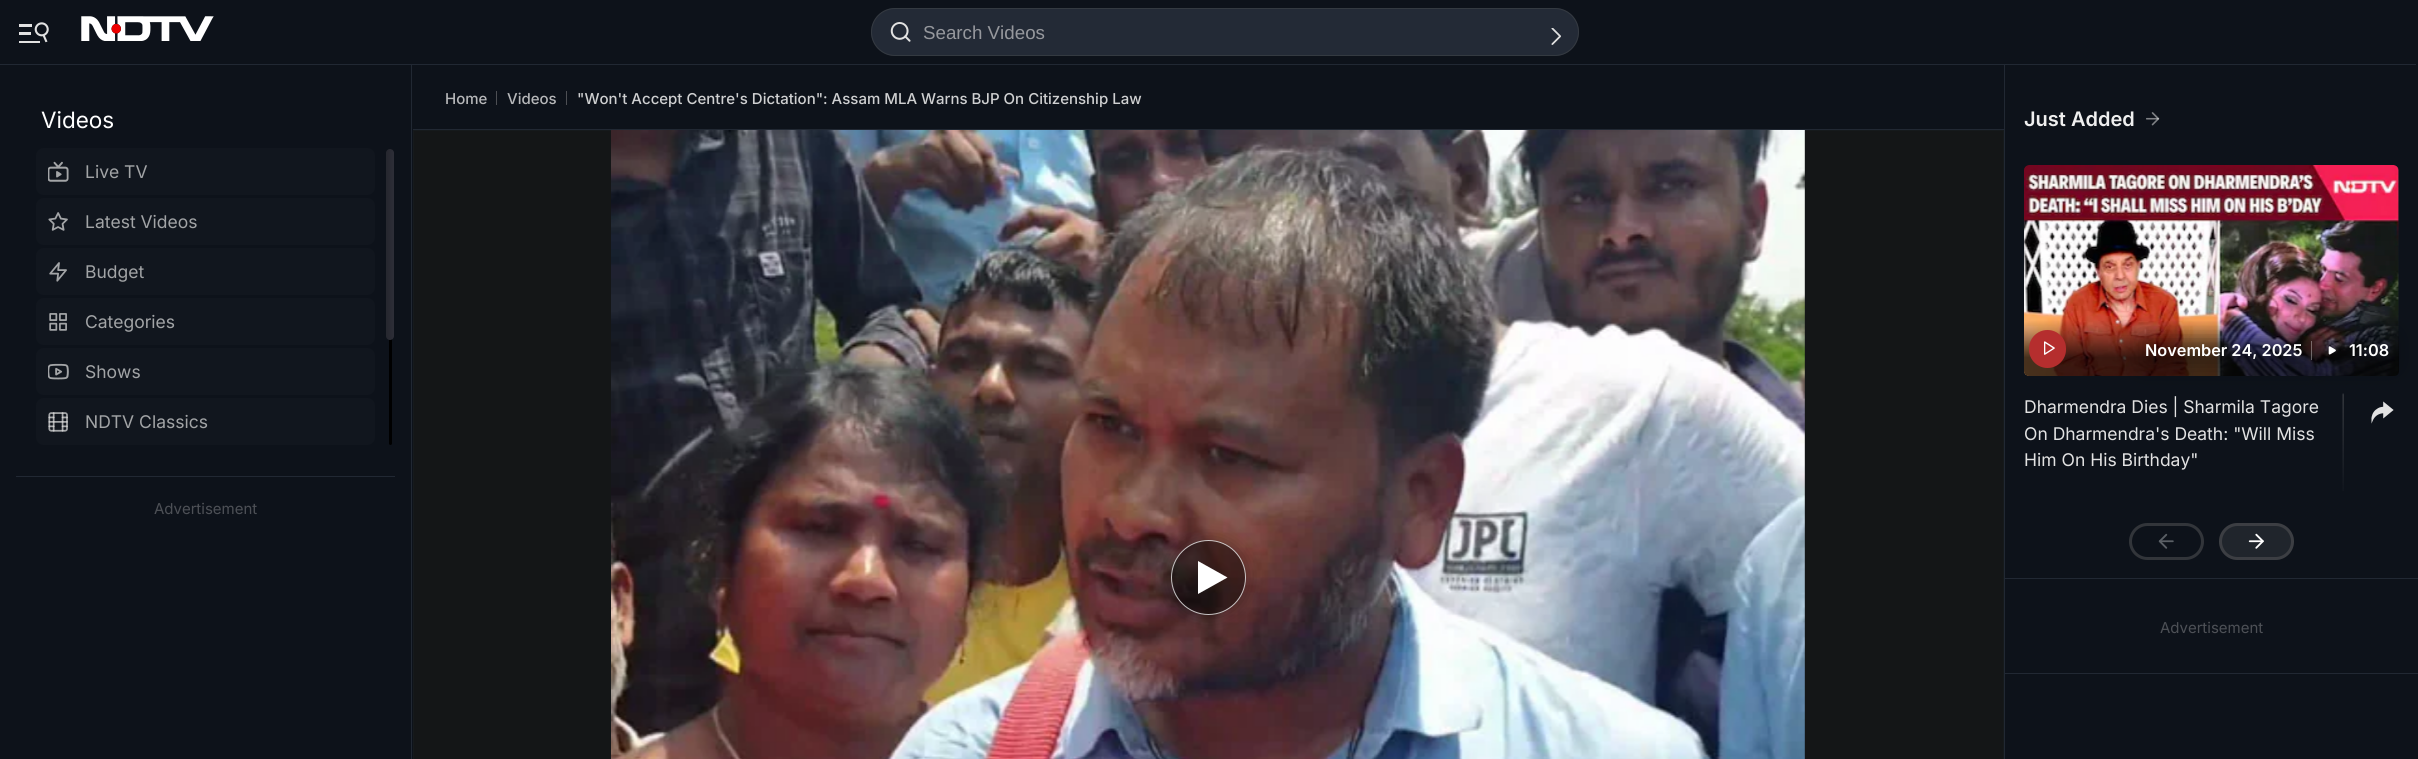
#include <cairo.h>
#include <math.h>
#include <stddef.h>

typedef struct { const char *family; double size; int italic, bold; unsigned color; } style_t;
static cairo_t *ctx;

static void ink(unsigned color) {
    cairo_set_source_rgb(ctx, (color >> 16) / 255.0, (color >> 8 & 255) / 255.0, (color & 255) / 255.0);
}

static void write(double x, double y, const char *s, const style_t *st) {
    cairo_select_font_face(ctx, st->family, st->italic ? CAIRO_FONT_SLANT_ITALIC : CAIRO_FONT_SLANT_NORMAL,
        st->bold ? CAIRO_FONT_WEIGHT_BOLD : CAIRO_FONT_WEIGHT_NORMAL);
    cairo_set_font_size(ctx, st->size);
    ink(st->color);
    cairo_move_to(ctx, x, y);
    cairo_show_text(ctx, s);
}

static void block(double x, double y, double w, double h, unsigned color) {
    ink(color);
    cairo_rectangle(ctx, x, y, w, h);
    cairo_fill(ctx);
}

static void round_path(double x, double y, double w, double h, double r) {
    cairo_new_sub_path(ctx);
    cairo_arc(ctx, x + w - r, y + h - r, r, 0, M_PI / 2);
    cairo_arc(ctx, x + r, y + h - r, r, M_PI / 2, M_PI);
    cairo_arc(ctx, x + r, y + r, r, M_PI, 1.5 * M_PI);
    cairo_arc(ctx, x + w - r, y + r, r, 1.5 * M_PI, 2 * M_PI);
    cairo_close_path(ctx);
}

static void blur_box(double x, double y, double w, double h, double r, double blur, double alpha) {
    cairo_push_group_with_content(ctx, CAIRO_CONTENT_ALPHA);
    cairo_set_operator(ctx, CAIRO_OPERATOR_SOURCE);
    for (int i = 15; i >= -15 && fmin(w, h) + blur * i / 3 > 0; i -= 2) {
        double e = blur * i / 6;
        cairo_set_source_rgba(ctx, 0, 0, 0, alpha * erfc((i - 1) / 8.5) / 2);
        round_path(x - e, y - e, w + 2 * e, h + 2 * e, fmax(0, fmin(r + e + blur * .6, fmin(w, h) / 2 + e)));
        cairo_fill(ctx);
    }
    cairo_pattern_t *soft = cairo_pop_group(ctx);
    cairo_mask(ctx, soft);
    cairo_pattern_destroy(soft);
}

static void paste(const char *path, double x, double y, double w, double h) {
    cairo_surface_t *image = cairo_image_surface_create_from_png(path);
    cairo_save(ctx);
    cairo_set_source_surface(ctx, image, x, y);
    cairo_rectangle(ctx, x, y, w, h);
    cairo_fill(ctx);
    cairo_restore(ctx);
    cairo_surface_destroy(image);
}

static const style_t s1 = {"Inter", 22.5, 0, 0, 0xffffff};
static const style_t s2 = {"Inter", 17.5, 0, 0, 0xa2a4a6};
static const style_t s3 = {"Inter", 15, 0, 0, 0x4d5056};
static const style_t s4 = {"Liberation Sans", 18.75, 0, 0, 0x96989d};
static const style_t s5 = {"Inter Medium", 15, 0, 0, 0xb7b8ba};
static const style_t s6 = {"Inter Medium", 15, 0, 0, 0xcfd0d1};
static const style_t s7 = {"Inter SemiBold", 20, 0, 0, 0xefefef};
static const style_t s8 = {"Inter SemiBold", 16.25, 0, 0, 0xffffff};
static const style_t s9 = {"Inter", 17.5, 0, 0, 0xe2e2e2};

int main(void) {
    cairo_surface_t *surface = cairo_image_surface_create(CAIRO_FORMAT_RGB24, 2418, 759);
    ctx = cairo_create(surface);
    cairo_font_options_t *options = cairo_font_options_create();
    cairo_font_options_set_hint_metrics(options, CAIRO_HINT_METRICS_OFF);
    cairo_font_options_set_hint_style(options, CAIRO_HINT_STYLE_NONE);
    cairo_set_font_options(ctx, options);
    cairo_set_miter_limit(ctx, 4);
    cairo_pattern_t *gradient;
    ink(0x0d121a);
    cairo_paint(ctx);
    block(0, 64, 2416, 1, 0x212833);
    paste("pic1.png", 19, 22, 30, 21);
    paste("pic2.png", 81, 16, 133, 25);
    block(16, 476, 379, 1, 0x212833);
    write(41, 128, "Videos", &s1);
    ink(0x11161e);
    round_path(36, 148, 339, 47, 8);
    cairo_fill(ctx);
    paste("pic3.png", 48, 161, 21, 21);
    write(85, 178, "Live TV", &s2);
    ink(0x11161e);
    round_path(36, 198, 339, 47, 8);
    cairo_fill(ctx);
    paste("pic4.png", 48, 212, 20, 19);
    write(85, 228, "Latest Videos", &s2);
    ink(0x11161e);
    round_path(36, 248, 339, 47, 8);
    cairo_fill(ctx);
    paste("pic5.png", 49, 262, 18, 20);
    write(85, 278, "Budget", &s2);
    ink(0x11161e);
    round_path(36, 298, 339, 47, 8);
    cairo_fill(ctx);
    paste("pic6.png", 49, 313, 18, 18);
    write(85, 328, "Categories", &s2);
    ink(0x11161e);
    round_path(36, 348, 339, 47, 8);
    cairo_fill(ctx);
    paste("pic7.png", 48, 363, 21, 17);
    write(85, 378, "Shows", &s2);
    ink(0x11161e);
    round_path(36, 398, 339, 47, 8);
    cairo_fill(ctx);
    paste("pic8.png", 48, 412, 20, 20);
    write(85, 428, "NDTV Classics", &s2);
    ink(0x000000);
    round_path(389, 149, 3, 296, 1.5);
    cairo_fill(ctx);
    gradient = cairo_pattern_create_linear(394, 244, 386, 244);
    cairo_pattern_add_color_stop_rgba(gradient, 0, 0.18, 0.184, 0.216, 1);
    cairo_pattern_add_color_stop_rgba(gradient, 1, 0.145, 0.153, 0.184, 1);
    cairo_set_source(ctx, gradient);
    cairo_pattern_destroy(gradient);
    round_path(386, 149, 8, 191, 4);
    cairo_fill(ctx);
    write(154, 514, "Advertisement", &s3);
    block(411, 65, 1, 694, 0x212833);
    ink(0x232a36);
    round_path(871, 8, 708, 48, 24);
    cairo_fill(ctx);
    round_path(871.5, 8.5, 707, 47, 23.5);
    cairo_set_source_rgba(ctx, 0.243, 0.259, 0.282, 0.65);
    cairo_set_line_width(ctx, 1);
    cairo_stroke(ctx);
    paste("pic9.png", 890, 22, 21, 20);
    write(923, 39, "Search Videos", &s4);
    paste("pic10.png", 1551, 28, 10, 17);
    write(445, 104, "Home", &s5);
    block(496, 91, 1, 14, 0x4d4f54);
    write(507, 104, "Videos", &s5);
    block(566, 91, 1, 14, 0x4d4f54);
    write(577, 104, "\"Won't Accept Centre's Dictation\": Assam MLA Warns BJP On Citizenship Law", &s6);
    block(413, 129, 1591, 1, 0x212833);
    ink(0x141617);
    cairo_rectangle(ctx, 413.5, 130.5, 1590, 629);
    cairo_fill_preserve(ctx);
    ink(0x161a1c);
    cairo_stroke(ctx);
    paste("pic11.png", 611, 130, 1194, 629);
    cairo_save(ctx);
    cairo_set_fill_rule(ctx, CAIRO_FILL_RULE_EVEN_ODD);
    cairo_new_path(ctx);
    cairo_move_to(ctx, 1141, 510);
    cairo_line_to(ctx, 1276, 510);
    cairo_line_to(ctx, 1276, 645);
    cairo_line_to(ctx, 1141, 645);
    cairo_close_path(ctx);
    cairo_move_to(ctx, 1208.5, 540);
    cairo_curve_to(ctx, 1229, 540, 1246, 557, 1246, 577.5);
    cairo_curve_to(ctx, 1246, 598, 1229, 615, 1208.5, 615);
    cairo_curve_to(ctx, 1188, 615, 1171, 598, 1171, 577.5);
    cairo_curve_to(ctx, 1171, 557, 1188, 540, 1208.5, 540);
    cairo_close_path(ctx);
    cairo_clip(ctx);
    ink(0x000000);
    blur_box(1171, 540, 75, 75, 37.5, 9.5, 0.35);
    cairo_restore(ctx);
    cairo_set_source_rgba(ctx, 0, 0, 0, 0.5);
    cairo_arc(ctx, 1208.5, 577.5, 37.5, 0, 2 * M_PI);
    cairo_fill(ctx);
    cairo_arc(ctx, 1208.5, 577.5, 37, 0, 2 * M_PI);
    cairo_set_source_rgba(ctx, 1, 1, 1, 0.75);
    cairo_stroke(ctx);
    ink(0xffffff);
    cairo_new_path(ctx);
    cairo_move_to(ctx, 1198, 594);
    cairo_line_to(ctx, 1198, 561);
    cairo_line_to(ctx, 1227.5, 577.5);
    cairo_close_path(ctx);
    cairo_fill(ctx);
    block(2004, 65, 1, 694, 0x212833);
    write(2024, 126, "Just Added", &s7);
    paste("pic12.png", 2146, 112, 14, 14);
    round_path(2024.5, 165.5, 374, 210, 4.5);
    ink(0x10161f);
    cairo_stroke(ctx);
    paste("pic13.png", 2024, 165, 375, 211);
    gradient = cairo_pattern_create_linear(2211, 376, 2211, 320);
    cairo_pattern_add_color_stop_rgba(gradient, 0.33, 0, 0, 0, 0.72);
    cairo_pattern_add_color_stop_rgba(gradient, 1, 0, 0, 0, 0);
    cairo_set_source(ctx, gradient);
    cairo_pattern_destroy(gradient);
    cairo_new_path(ctx);
    cairo_move_to(ctx, 2024, 320);
    cairo_line_to(ctx, 2399, 320);
    cairo_line_to(ctx, 2399, 371);
    cairo_curve_to(ctx, 2399, 374, 2397, 376, 2394, 376);
    cairo_line_to(ctx, 2029, 376);
    cairo_curve_to(ctx, 2026, 376, 2024, 374, 2024, 371);
    cairo_close_path(ctx);
    cairo_fill(ctx);
    ink(0xb52e2e);
    round_path(2029, 330, 37, 38, 18.5);
    cairo_fill(ctx);
    paste("pic14.png", 2044, 341, 11, 14);
    ink(0x000000);
    blur_box(2140, 336, 178, 30, 0, 12.5, 0.31);
    blur_box(2318, 336, 76, 30, 0, 12.5, 0.31);
    write(2145, 356, "November 24, 2025", &s8);
    cairo_set_source_rgba(ctx, 1, 1, 1, 0.34);
    cairo_rectangle(ctx, 2311, 341, 1, 19);
    cairo_fill(ctx);
    paste("pic15.png", 2328, 346, 8, 9);
    write(2349, 356, "11:08", &s8);
    paste("pic16.png", 2342, 393, 2, 98);
    write(2024, 413, "Dharmendra Dies | Sharmila Tagore", &s9);
    write(2024, 440, "On Dharmendra's Death: \"Will Miss", &s9);
    write(2024, 466, "Him On His Birthday\"", &s9);
    paste("pic17.png", 2371, 401, 23, 23);
    round_path(2130.5, 524.5, 72, 34, 17);
    ink(0x32353a);
    cairo_set_line_width(ctx, 3);
    cairo_stroke(ctx);
    paste("pic18.png", 2158, 533, 16, 16);
    cairo_set_source_rgba(ctx, 1, 1, 1, 0.08);
    round_path(2219, 523, 75, 37, 18.5);
    cairo_fill(ctx);
    round_path(2220.5, 524.5, 72, 34, 17);
    cairo_set_source_rgba(ctx, 0.388, 0.388, 0.388, 0.42);
    cairo_stroke(ctx);
    paste("pic19.png", 2248, 533, 16, 16);
    block(2005, 578, 413, 1, 0x212833);
    block(2005, 673, 413, 1, 0x212833);
    write(2160, 633, "Advertisement", &s3);
    cairo_surface_write_to_png(surface, "screenshot.png");
    cairo_font_options_destroy(options);
    cairo_destroy(ctx);
    cairo_surface_destroy(surface);
    return 0;
}
